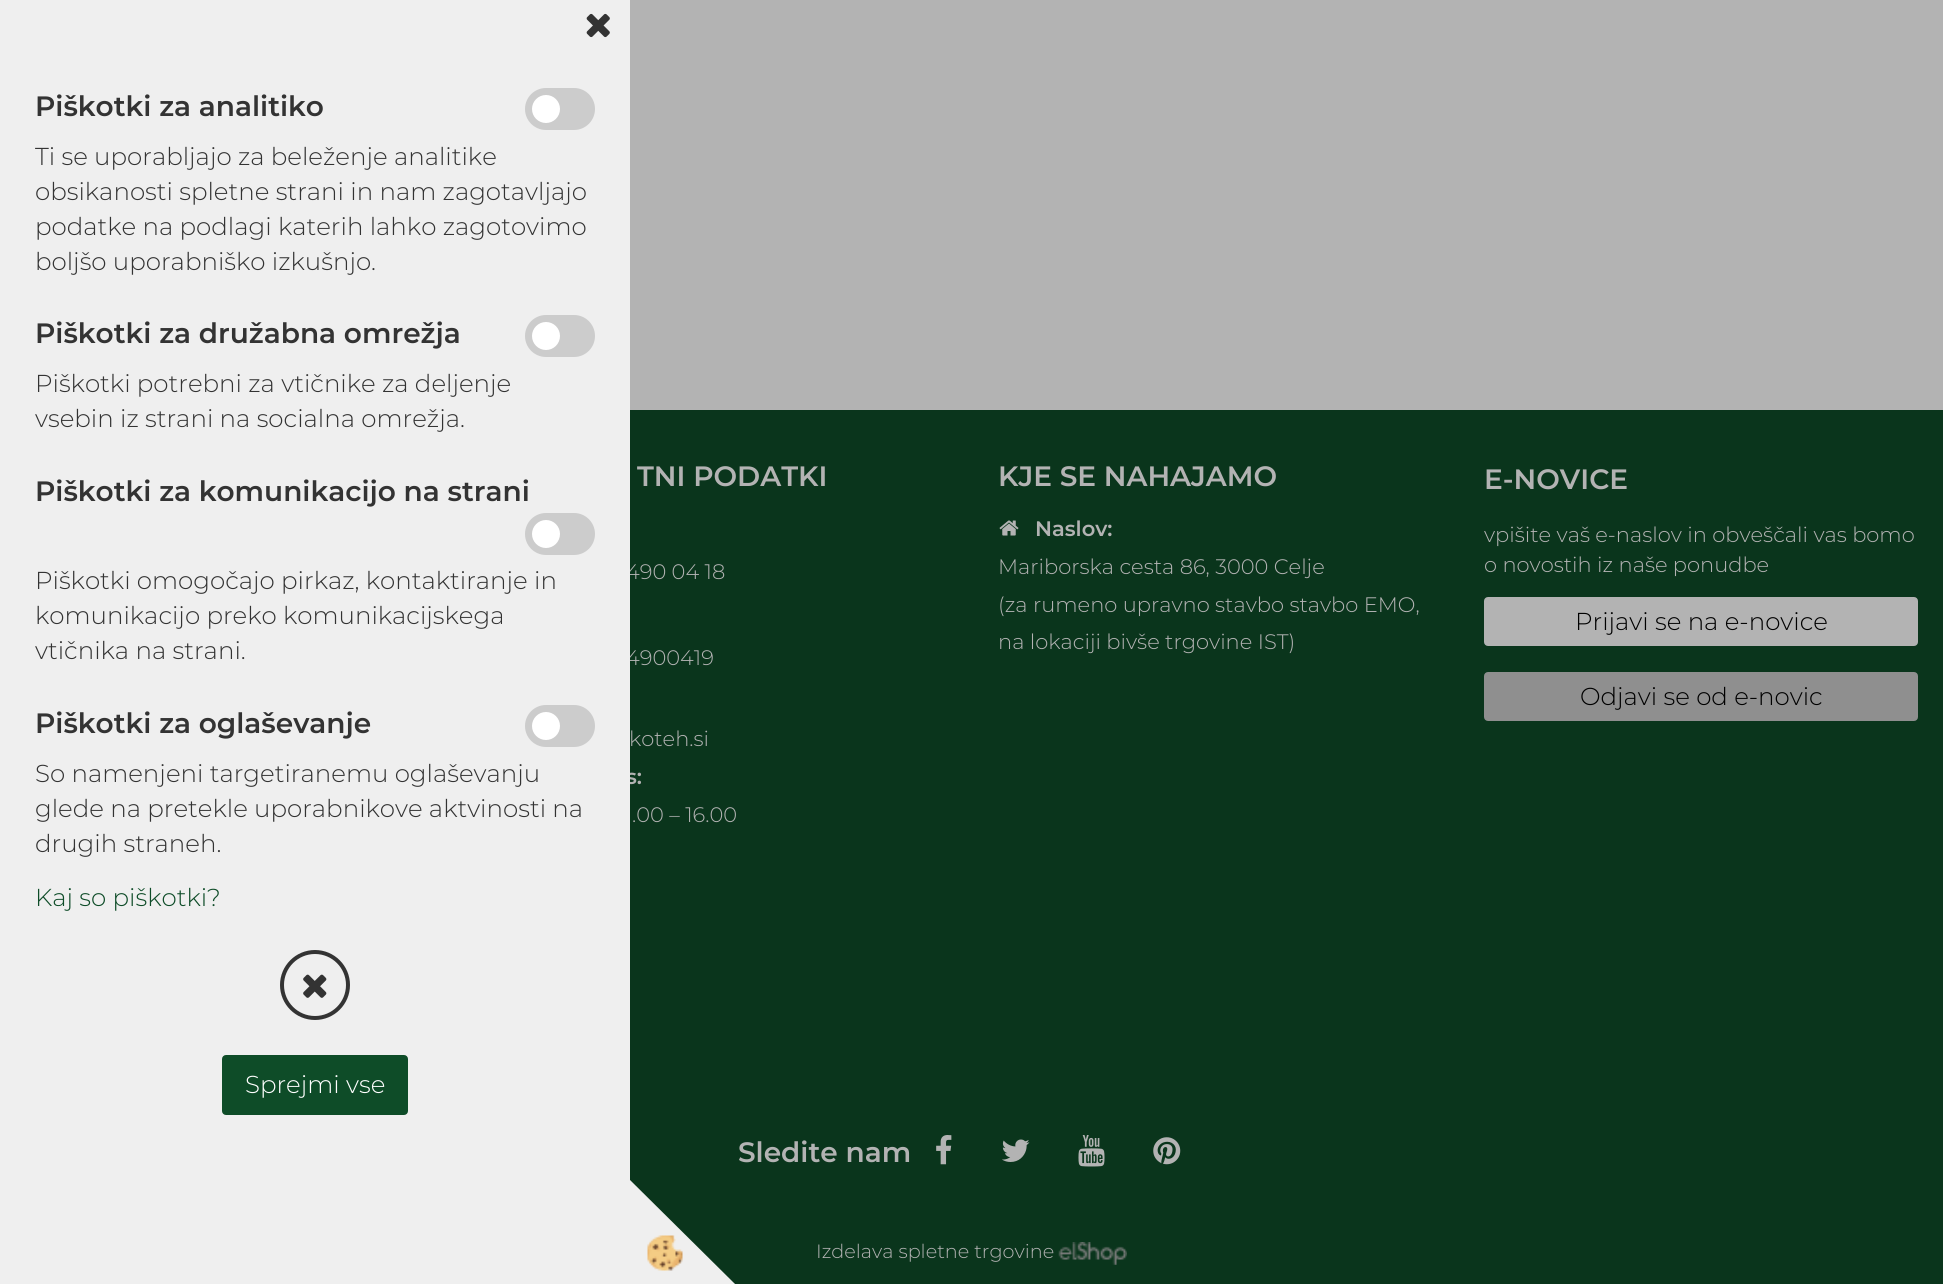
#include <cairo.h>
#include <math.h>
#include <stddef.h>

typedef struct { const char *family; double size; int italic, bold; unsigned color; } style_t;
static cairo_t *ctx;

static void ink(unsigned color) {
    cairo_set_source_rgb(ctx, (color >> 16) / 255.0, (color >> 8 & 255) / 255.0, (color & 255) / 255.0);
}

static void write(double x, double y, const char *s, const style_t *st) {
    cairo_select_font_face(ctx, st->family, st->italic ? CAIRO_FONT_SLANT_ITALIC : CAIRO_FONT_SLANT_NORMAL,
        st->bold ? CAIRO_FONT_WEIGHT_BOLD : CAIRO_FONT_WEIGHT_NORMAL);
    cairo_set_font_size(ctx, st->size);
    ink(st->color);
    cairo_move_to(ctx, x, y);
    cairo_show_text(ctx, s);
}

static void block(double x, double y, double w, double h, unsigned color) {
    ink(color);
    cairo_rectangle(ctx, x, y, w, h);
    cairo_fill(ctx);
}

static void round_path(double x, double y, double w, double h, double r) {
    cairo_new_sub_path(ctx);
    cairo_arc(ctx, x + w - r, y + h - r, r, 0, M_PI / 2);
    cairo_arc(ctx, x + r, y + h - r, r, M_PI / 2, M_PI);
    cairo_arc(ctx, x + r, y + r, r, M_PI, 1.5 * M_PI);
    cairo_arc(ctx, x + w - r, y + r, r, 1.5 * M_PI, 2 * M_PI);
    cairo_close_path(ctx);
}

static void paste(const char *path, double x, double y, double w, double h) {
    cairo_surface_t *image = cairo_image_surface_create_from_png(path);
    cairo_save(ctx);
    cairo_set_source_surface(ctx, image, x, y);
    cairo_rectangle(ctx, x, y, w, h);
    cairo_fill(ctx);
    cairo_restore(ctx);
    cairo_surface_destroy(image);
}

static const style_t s1 = {"Montserrat Light", 21, 0, 0, 0xb3b3b3};
static const style_t s2 = {"Montserrat SemiBold", 21, 0, 0, 0xb3b3b3};
static const style_t s3 = {"Montserrat SemiBold", 28, 0, 0, 0x333333};
static const style_t s4 = {"Montserrat Light", 24.5, 0, 0, 0x333333};
static const style_t s5 = {"Montserrat Light", 24.5, 0, 0, 0x0e4c28};
static const style_t s6 = {"Montserrat Light", 24.5, 0, 0, 0xffffff};
static const style_t s7 = {"Montserrat SemiBold", 28, 0, 0, 0xb3b3b3};
static const style_t s8 = {"Montserrat Light", 24.5, 0, 0, 0x000000};
static const style_t s9 = {"Montserrat Light", 19.25, 0, 0, 0xb3b3b3};

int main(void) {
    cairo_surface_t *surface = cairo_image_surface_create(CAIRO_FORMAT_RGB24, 1943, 1284);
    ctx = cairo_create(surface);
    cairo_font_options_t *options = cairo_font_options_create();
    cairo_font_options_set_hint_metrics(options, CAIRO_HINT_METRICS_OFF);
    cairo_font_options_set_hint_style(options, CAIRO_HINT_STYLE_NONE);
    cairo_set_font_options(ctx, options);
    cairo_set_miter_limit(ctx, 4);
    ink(0xb3b3b3);
    cairo_paint(ctx);
    block(630, 410, 1313, 812, 0x0a351c);
    write(626, 579, "490 04 18", &s1);
    write(626, 665, "4900419", &s1);
    write(626, 784, "s:", &s2);
    block(0, 0, 630, 1284, 0xefefef);
    paste("pic1.png", 586, 13, 24, 25);
    write(35, 116, "Piškotki za analitiko", &s3);
    ink(0xcccccc);
    round_path(525, 88, 70, 42, 21);
    cairo_fill(ctx);
    ink(0xffffff);
    cairo_arc(ctx, 546, 109, 14, 0, 2 * M_PI);
    cairo_fill(ctx);
    write(35, 165, "Ti se uporabljajo za beleženje analitike", &s4);
    write(35, 200, "obsikanosti spletne strani in nam zagotavljajo", &s4);
    write(35, 235, "podatke na podlagi katerih lahko zagotovimo", &s4);
    write(35, 270, "boljšo uporabniško izkušnjo.", &s4);
    write(35, 343, "Piškotki za družabna omrežja", &s3);
    ink(0xcccccc);
    round_path(525, 315, 70, 42, 21);
    cairo_fill(ctx);
    ink(0xffffff);
    cairo_arc(ctx, 546, 336, 14, 0, 2 * M_PI);
    cairo_fill(ctx);
    write(35, 392, "Piškotki potrebni za vtičnike za deljenje", &s4);
    write(35, 427, "vsebin iz strani na socialna omrežja.", &s4);
    write(35, 501, "Piškotki za komunikacijo na strani", &s3);
    ink(0xcccccc);
    round_path(525, 513, 70, 42, 21);
    cairo_fill(ctx);
    ink(0xffffff);
    cairo_arc(ctx, 546, 534, 14, 0, 2 * M_PI);
    cairo_fill(ctx);
    write(35, 589, "Piškotki omogočajo pirkaz, kontaktiranje in", &s4);
    write(35, 624, "komunikacijo preko komunikacijskega", &s4);
    write(35, 659, "vtičnika na strani.", &s4);
    write(35, 733, "Piškotki za oglaševanje", &s3);
    ink(0xcccccc);
    round_path(525, 705, 70, 42, 21);
    cairo_fill(ctx);
    ink(0xffffff);
    cairo_arc(ctx, 546, 726, 14, 0, 2 * M_PI);
    cairo_fill(ctx);
    write(35, 782, "So namenjeni targetiranemu oglaševanju", &s4);
    write(35, 817, "glede na pretekle uporabnikove aktvinosti na", &s4);
    write(35, 852, "drugih straneh.", &s4);
    write(35, 906, "Kaj so piškotki?", &s5);
    cairo_new_path(ctx);
    cairo_arc(ctx, 315, 985, 33, 0, 2 * M_PI);
    ink(0x333333);
    cairo_set_line_width(ctx, 4);
    cairo_stroke(ctx);
    paste("pic2.png", 303, 974, 24, 24);
    ink(0x0e4c28);
    round_path(223, 1056, 184, 58, 3);
    cairo_fill_preserve(ctx);
    cairo_set_line_width(ctx, 2);
    cairo_stroke(ctx);
    write(245, 1093, "Sprejmi vse", &s6);
    block(672, 1222, 1271, 62, 0x0a351c);
    ink(0xefefef);
    cairo_new_path(ctx);
    cairo_move_to(ctx, 735, 1284);
    cairo_line_to(ctx, 630, 1284);
    cairo_line_to(ctx, 630, 1180);
    cairo_close_path(ctx);
    cairo_fill(ctx);
    paste("pic3.png", 647, 1235, 36, 36);
    write(637, 486, "TNI PODATKI", &s7);
    write(629, 746, "koteh.si", &s1);
    write(632, 822, ".00 – 16.00", &s1);
    write(998, 486, "KJE SE NAHAJAMO", &s7);
    paste("pic4.png", 999, 520, 20, 16);
    write(1035, 536, "Naslov:", &s2);
    write(998, 574, "Mariborska cesta 86, 3000 Celje", &s1);
    write(998, 612, "(za rumeno upravno stavbo stavbo EMO,", &s1);
    write(998, 649, "na lokaciji bivše trgovine IST)", &s1);
    write(1484, 489, "E-NOVICE", &s7);
    write(1484, 542, "vpišite vaš e-naslov in obveščali vas bomo", &s1);
    write(1484, 572, "o novostih iz naše ponudbe", &s1);
    round_path(1485, 598, 432, 47, 3);
    cairo_fill_preserve(ctx);
    cairo_stroke(ctx);
    write(1575, 630, "Prijavi se na e-novice", &s8);
    ink(0x8f8f8f);
    round_path(1485, 673, 432, 47, 3);
    cairo_fill_preserve(ctx);
    cairo_stroke(ctx);
    write(1580, 705, "Odjavi se od e-novic", &s8);
    write(738, 1162, "Sledite nam", &s7);
    paste("pic5.png", 936, 1135, 16, 30);
    paste("pic6.png", 1002, 1139, 28, 23);
    paste("pic7.png", 1078, 1135, 27, 32);
    paste("pic8.png", 1153, 1137, 28, 28);
    write(816, 1258, "Izdelava spletne trgovine", &s9);
    paste("pic9.png", 1058, 1242, 69, 23);
    cairo_surface_write_to_png(surface, "screenshot.png");
    cairo_font_options_destroy(options);
    cairo_destroy(ctx);
    cairo_surface_destroy(surface);
    return 0;
}
